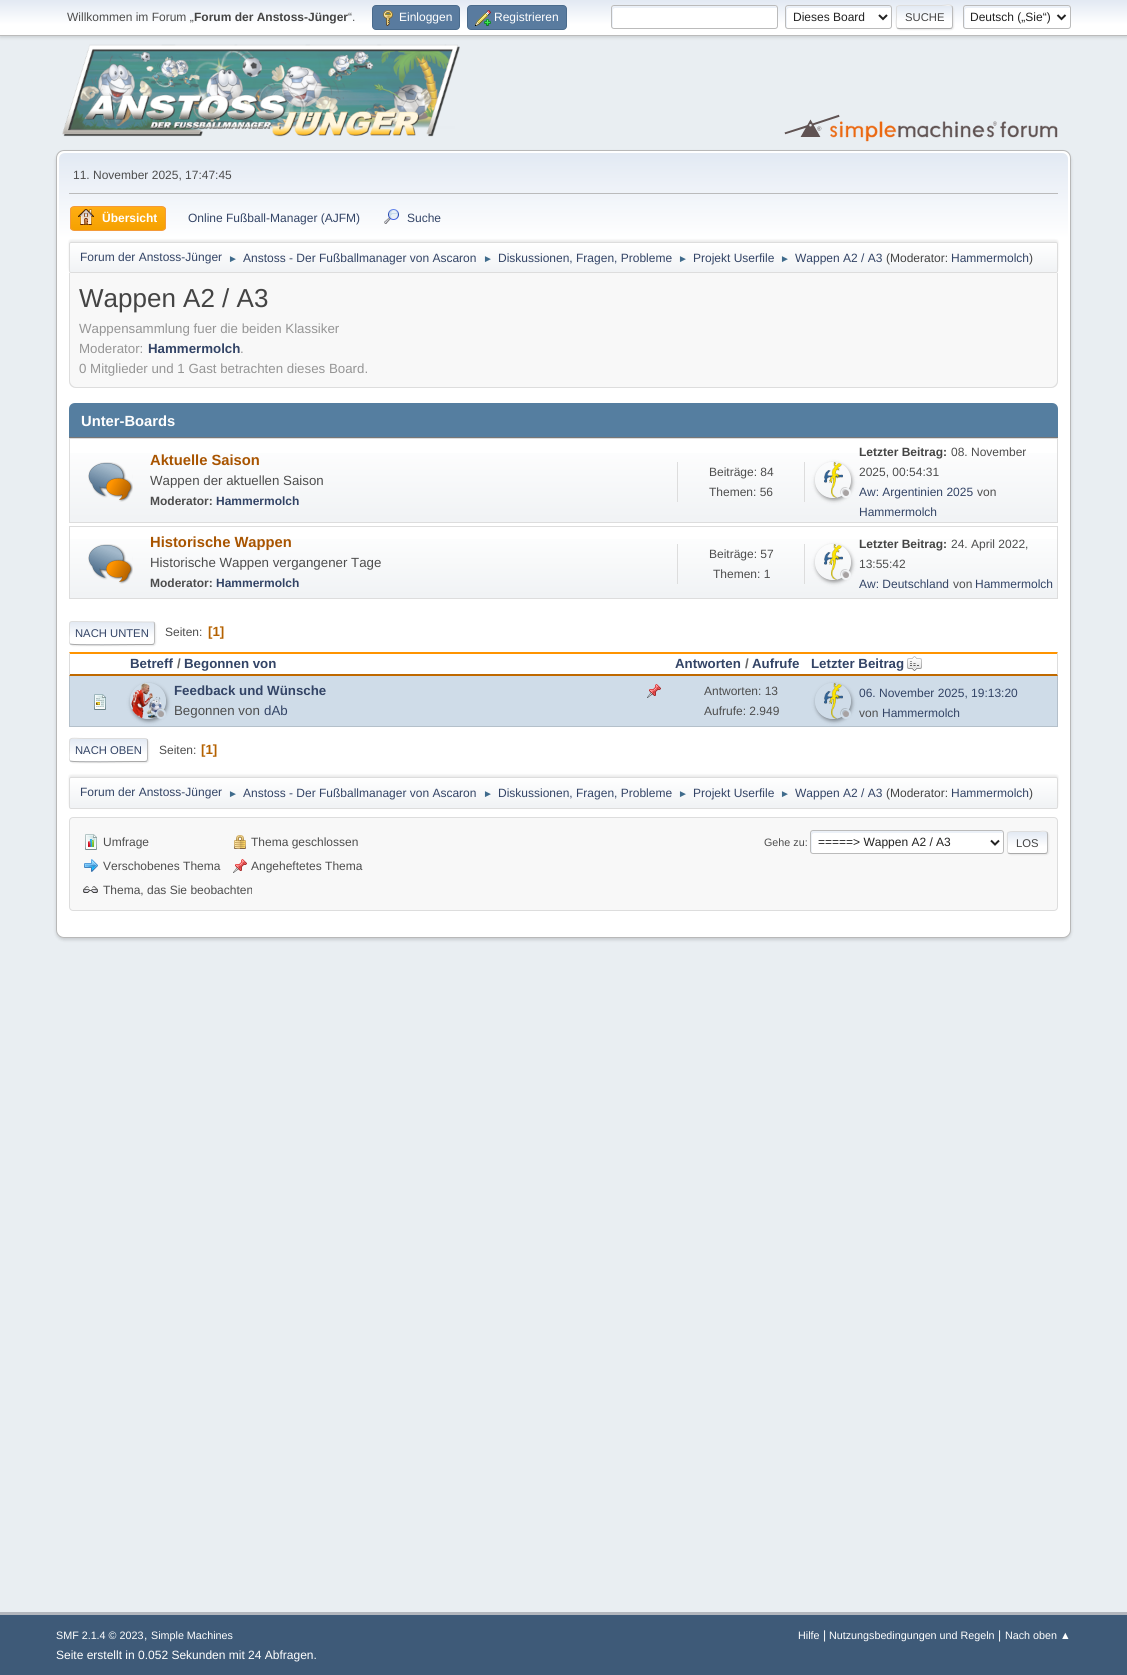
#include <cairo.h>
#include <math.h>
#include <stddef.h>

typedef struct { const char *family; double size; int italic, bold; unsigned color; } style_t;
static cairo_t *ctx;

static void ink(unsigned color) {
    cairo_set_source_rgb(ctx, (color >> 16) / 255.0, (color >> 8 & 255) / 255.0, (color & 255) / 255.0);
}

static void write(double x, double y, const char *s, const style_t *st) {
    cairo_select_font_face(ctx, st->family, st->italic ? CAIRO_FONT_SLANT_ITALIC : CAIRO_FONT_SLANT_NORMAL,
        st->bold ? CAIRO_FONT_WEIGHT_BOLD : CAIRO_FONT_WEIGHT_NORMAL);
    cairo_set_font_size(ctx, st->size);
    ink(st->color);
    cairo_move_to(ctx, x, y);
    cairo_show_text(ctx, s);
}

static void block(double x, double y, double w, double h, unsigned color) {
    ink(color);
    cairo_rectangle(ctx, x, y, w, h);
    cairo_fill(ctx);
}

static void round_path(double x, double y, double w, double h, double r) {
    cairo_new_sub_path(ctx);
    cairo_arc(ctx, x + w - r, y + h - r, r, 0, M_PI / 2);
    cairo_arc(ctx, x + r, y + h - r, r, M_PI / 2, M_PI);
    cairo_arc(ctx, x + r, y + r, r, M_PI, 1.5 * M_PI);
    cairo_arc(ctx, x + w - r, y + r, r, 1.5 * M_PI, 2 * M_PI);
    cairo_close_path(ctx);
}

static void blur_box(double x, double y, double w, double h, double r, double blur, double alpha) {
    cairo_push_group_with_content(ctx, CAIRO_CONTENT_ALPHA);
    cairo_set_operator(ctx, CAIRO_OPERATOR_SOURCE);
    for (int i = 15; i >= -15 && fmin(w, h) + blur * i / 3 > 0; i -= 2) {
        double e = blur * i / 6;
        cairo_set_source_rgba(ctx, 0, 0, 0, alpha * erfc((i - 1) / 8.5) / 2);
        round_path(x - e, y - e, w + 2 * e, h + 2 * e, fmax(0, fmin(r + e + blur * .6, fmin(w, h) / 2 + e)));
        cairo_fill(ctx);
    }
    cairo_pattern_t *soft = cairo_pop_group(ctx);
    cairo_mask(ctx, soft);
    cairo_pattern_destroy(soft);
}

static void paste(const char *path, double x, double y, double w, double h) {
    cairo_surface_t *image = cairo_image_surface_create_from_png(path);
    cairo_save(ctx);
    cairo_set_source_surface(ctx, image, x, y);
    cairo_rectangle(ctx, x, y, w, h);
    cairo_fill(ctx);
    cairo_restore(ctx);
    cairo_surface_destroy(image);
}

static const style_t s1 = {"Liberation Sans", 12, 0, 0, 0x4d4d4d};
static const style_t s2 = {"Liberation Sans", 12, 0, 1, 0x444444};
static const style_t s3 = {"Liberation Sans", 12, 0, 0, 0xffffff};
static const style_t s4 = {"Liberation Sans", 12, 0, 0, 0x222222};
static const style_t s5 = {"Liberation Sans", 11.25, 0, 0, 0x444444};
static const style_t s6 = {"Liberation Sans", 12, 0, 1, 0xffffff};
static const style_t s7 = {"Liberation Sans", 12, 0, 0, 0x334466};
static const style_t s8 = {"Liberation Sans", 10, 0, 0, 0x3f6b8c};
static const style_t s9 = {"Liberation Sans", 12, 0, 0, 0x444444};
static const style_t s10 = {"Liberation Sans", 26, 0, 0, 0x444444};
static const style_t s11 = {"Liberation Sans", 13.3, 0, 0, 0x959595};
static const style_t s12 = {"Liberation Sans", 13.3, 0, 1, 0x334466};
static const style_t s13 = {"Liberation Sans", 14.75, 0, 1, 0xffffff};
static const style_t s14 = {"Liberation Sans", 14.75, 0, 1, 0xa85400};
static const style_t s15 = {"Liberation Sans", 13.3, 0, 0, 0x4d4d4d};
static const style_t s16 = {"Liberation Sans", 12, 0, 1, 0x4d4d4d};
static const style_t s17 = {"Liberation Sans", 12, 0, 1, 0x334466};
static const style_t s18 = {"Liberation Sans", 11.25, 0, 0, 0x334466};
static const style_t s19 = {"Liberation Sans", 13.3, 0, 1, 0xb46100};
static const style_t s20 = {"Liberation Sans", 13.3, 0, 1, 0x666666};
static const style_t s21 = {"Liberation Sans", 13.3, 0, 0, 0x334466};
static const style_t s22 = {"Liberation Sans", 10.75, 0, 0, 0x4d4d4d};
static const style_t s23 = {"Liberation Sans", 10.75, 0, 0, 0xffffff};

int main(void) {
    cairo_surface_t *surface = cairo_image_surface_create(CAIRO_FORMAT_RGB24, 1127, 1675);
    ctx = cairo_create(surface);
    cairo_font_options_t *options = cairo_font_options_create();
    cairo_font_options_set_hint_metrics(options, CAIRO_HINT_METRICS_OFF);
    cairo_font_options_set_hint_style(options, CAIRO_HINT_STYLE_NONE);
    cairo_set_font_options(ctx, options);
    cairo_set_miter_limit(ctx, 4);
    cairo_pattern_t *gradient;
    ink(0xe9eef2);
    cairo_paint(ctx);
    ink(0x000000);
    blur_box(0, 1, 1127, 36, 0, 2, 0.16);
    gradient = cairo_pattern_create_linear(564, 0, 564, 35);
    cairo_pattern_add_color_stop_rgba(gradient, 0, 0.886, 0.914, 0.953, 1);
    cairo_pattern_add_color_stop_rgba(gradient, 0.7, 1, 1, 1, 1);
    cairo_set_source(ctx, gradient);
    cairo_pattern_destroy(gradient);
    cairo_rectangle(ctx, 0, 0, 1127, 35);
    cairo_fill(ctx);
    block(0, 35, 1127, 1, 0xbbbbbb);
    write(67, 21, "Willkommen im Forum „", &s1);
    write(194, 21, "Forum der Anstoss-Jünger", &s2);
    write(348, 21, "“.", &s1);
    ink(0x597b9f);
    round_path(372.5, 5.5, 87, 24, 3.5);
    cairo_fill_preserve(ctx);
    ink(0x4a6b8c);
    cairo_set_line_width(ctx, 1);
    cairo_stroke(ctx);
    paste("pic1.png", 383, 10, 10, 16);
    write(399, 21, "Einloggen", &s3);
    ink(0x597b9f);
    round_path(467.5, 5.5, 99, 24, 3.5);
    cairo_fill_preserve(ctx);
    ink(0x4a6b8c);
    cairo_stroke(ctx);
    paste("pic2.png", 475, 10, 16, 16);
    write(494, 21, "Registrieren", &s3);
    round_path(611, 5, 167, 24, 3);
    cairo_fill(ctx);
    ink(0xecf1f8);
    cairo_new_path(ctx);
    cairo_move_to(ctx, 615, 8);
    cairo_line_to(ctx, 777, 8);
    cairo_line_to(ctx, 777, 7);
    cairo_line_to(ctx, 775, 6);
    cairo_line_to(ctx, 614, 6);
    cairo_curve_to(ctx, 613, 6, 612, 7, 612, 8);
    cairo_curve_to(ctx, 612, 11, 611, 27, 613, 28);
    cairo_line_to(ctx, 613, 10);
    cairo_curve_to(ctx, 613, 9, 614, 8, 615, 8);
    cairo_close_path(ctx);
    cairo_fill(ctx);
    round_path(611.5, 5.5, 166, 23, 2.5);
    ink(0xbbbbbb);
    cairo_stroke(ctx);
    ink(0xffffff);
    round_path(785, 5, 107, 24, 3);
    cairo_fill(ctx);
    ink(0xecf1f8);
    cairo_new_path(ctx);
    cairo_move_to(ctx, 789, 8);
    cairo_line_to(ctx, 891, 8);
    cairo_curve_to(ctx, 891, 3, 875, 6, 872, 6);
    cairo_line_to(ctx, 805, 6);
    cairo_curve_to(ctx, 784, 6, 786, 2, 786, 17);
    cairo_curve_to(ctx, 786, 19, 785, 27, 787, 28);
    cairo_line_to(ctx, 787, 10);
    cairo_curve_to(ctx, 787, 9, 788, 8, 789, 8);
    cairo_close_path(ctx);
    cairo_fill(ctx);
    round_path(785.5, 5.5, 106, 23, 2.5);
    ink(0xbbbbbb);
    cairo_stroke(ctx);
    cairo_new_path(ctx);
    cairo_move_to(ctx, 879, 15);
    cairo_line_to(ctx, 883, 19);
    cairo_line_to(ctx, 887, 15);
    ink(0x222222);
    cairo_set_line_width(ctx, 2);
    cairo_stroke(ctx);
    write(793, 21, "Dieses Board", &s4);
    ink(0xdddddd);
    blur_box(897, 6, 57, 24, 3, 0.5, 0.57);
    cairo_save(ctx);
    round_path(896, 5, 57, 24, 3);
    cairo_clip(ctx);
    gradient = cairo_pattern_create_linear(925, -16, 925, 6);
    cairo_pattern_add_color_stop_rgba(gradient, 0, 0.886, 0.914, 0.953, 1);
    cairo_pattern_add_color_stop_rgba(gradient, 0.7, 1, 1, 1, 1);
    cairo_set_source(ctx, gradient);
    cairo_pattern_destroy(gradient);
    cairo_rectangle(ctx, 896, 5, 57, 1);
    cairo_fill(ctx);
    gradient = cairo_pattern_create_linear(925, 6, 925, 28);
    cairo_pattern_add_color_stop_rgba(gradient, 0, 0.886, 0.914, 0.953, 1);
    cairo_pattern_add_color_stop_rgba(gradient, 0.7, 1, 1, 1, 1);
    cairo_set_source(ctx, gradient);
    cairo_pattern_destroy(gradient);
    cairo_rectangle(ctx, 896, 6, 57, 22);
    cairo_fill(ctx);
    cairo_restore(ctx);
    cairo_new_path(ctx);
    cairo_move_to(ctx, 952, 6);
    cairo_curve_to(ctx, 952, 6.5, 952.5, 7.5, 952.5, 8);
    cairo_line_to(ctx, 952.5, 26);
    cairo_curve_to(ctx, 952.5, 26.5, 952, 27.5, 952, 28);
    ink(0xbbbbbb);
    cairo_set_line_width(ctx, 1);
    cairo_stroke(ctx);
    cairo_new_path(ctx);
    cairo_move_to(ctx, 952, 28);
    cairo_line_to(ctx, 950, 28.5);
    cairo_line_to(ctx, 899, 28.5);
    cairo_line_to(ctx, 897, 28);
    ink(0xaaaaaa);
    cairo_stroke(ctx);
    cairo_new_path(ctx);
    cairo_move_to(ctx, 897, 28);
    cairo_curve_to(ctx, 895.5, 26, 896.5, 19, 896.5, 17);
    cairo_curve_to(ctx, 896.5, 4, 894.5, 5.5, 907.5, 5.5);
    cairo_line_to(ctx, 941.5, 5.5);
    cairo_curve_to(ctx, 945, 5.5, 949.5, 4, 952, 6);
    ink(0xdddddd);
    cairo_stroke(ctx);
    write(905, 21, "SUCHE", &s5);
    ink(0xffffff);
    round_path(963, 5, 108, 24, 3);
    cairo_fill(ctx);
    ink(0xecf1f8);
    cairo_new_path(ctx);
    cairo_move_to(ctx, 967, 8);
    cairo_line_to(ctx, 1070, 8);
    cairo_curve_to(ctx, 1070, 7, 1070, 6, 1068, 6);
    cairo_line_to(ctx, 966, 6);
    cairo_curve_to(ctx, 965, 6, 964, 7, 964, 8);
    cairo_curve_to(ctx, 964, 11, 963, 27, 965, 28);
    cairo_line_to(ctx, 965, 10);
    cairo_curve_to(ctx, 965, 9, 966, 8, 967, 8);
    cairo_close_path(ctx);
    cairo_fill(ctx);
    round_path(963.5, 5.5, 107, 23, 2.5);
    ink(0xbbbbbb);
    cairo_stroke(ctx);
    cairo_new_path(ctx);
    cairo_move_to(ctx, 1057.5, 15);
    cairo_line_to(ctx, 1061.5, 19);
    cairo_line_to(ctx, 1065.5, 15);
    ink(0x222222);
    cairo_set_line_width(ctx, 2);
    cairo_stroke(ctx);
    write(970, 21, "Deutsch („Sie“)", &s4);
    paste("pic3.png", 62, 44, 398, 93);
    paste("pic4.png", 784, 114, 274, 28);
    ink(0x000000);
    blur_box(56, 152, 1015, 788, 8, 1.5, 0.14);
    ink(0xffffff);
    round_path(56.5, 150.5, 1014, 787, 7.5);
    cairo_fill_preserve(ctx);
    ink(0xb8b8b8);
    cairo_set_line_width(ctx, 1);
    cairo_stroke(ctx);
    gradient = cairo_pattern_create_linear(564, 153, 564, 275);
    cairo_pattern_add_color_stop_rgba(gradient, 0, 0.886, 0.914, 0.953, 1);
    cairo_pattern_add_color_stop_rgba(gradient, 0.7, 1, 1, 1, 1);
    cairo_set_source(ctx, gradient);
    cairo_pattern_destroy(gradient);
    cairo_new_path(ctx);
    cairo_move_to(ctx, 65, 153);
    cairo_line_to(ctx, 1062, 153);
    cairo_curve_to(ctx, 1065.5, 153, 1068, 155.5, 1068, 159);
    cairo_line_to(ctx, 1068, 275);
    cairo_line_to(ctx, 59, 275);
    cairo_line_to(ctx, 59, 159);
    cairo_curve_to(ctx, 59, 155.5, 61.5, 153, 65, 153);
    cairo_close_path(ctx);
    cairo_fill(ctx);
    block(69, 193, 989, 1, 0xbbbbbb);
    write(73, 179, "11. November 2025, 17:47:45", &s1);
    cairo_save(ctx);
    round_path(70, 206, 96, 25, 4);
    cairo_clip(ctx);
    gradient = cairo_pattern_create_linear(118, 207, 118, 230);
    cairo_pattern_add_color_stop_rgba(gradient, 0, 1, 0.682, 0.078, 1);
    cairo_pattern_add_color_stop_rgba(gradient, 1, 0.961, 0.631, 0, 1);
    cairo_set_source(ctx, gradient);
    cairo_pattern_destroy(gradient);
    cairo_rectangle(ctx, 70, 207, 96, 23);
    cairo_fill(ctx);
    cairo_restore(ctx);
    round_path(70.5, 206.5, 95, 24, 3.5);
    ink(0xf49a3a);
    cairo_stroke(ctx);
    paste("pic5.png", 78, 209, 16, 16);
    write(102, 222, "Übersicht", &s6);
    write(188, 222, "Online Fußball-Manager (AJFM)", &s7);
    paste("pic6.png", 384, 209, 15, 15);
    write(407, 222, "Suche", &s7);
    ink(0x000000);
    blur_box(69, 240, 989, 31, 2, 1, 0.08);
    cairo_save(ctx);
    round_path(69, 242, 989, 31, 2);
    cairo_clip(ctx);
    gradient = cairo_pattern_create_linear(564, 243, 564, 272);
    cairo_pattern_add_color_stop_rgba(gradient, 0, 1, 1, 1, 1);
    cairo_pattern_add_color_stop_rgba(gradient, 0.95, 0.945, 0.953, 0.961, 1);
    cairo_set_source(ctx, gradient);
    cairo_pattern_destroy(gradient);
    cairo_rectangle(ctx, 69, 243, 989, 29);
    cairo_fill(ctx);
    cairo_restore(ctx);
    round_path(69.5, 242.5, 988, 30, 1.5);
    ink(0xdddddd);
    cairo_stroke(ctx);
    write(80, 261, "Forum der Anstoss-Jünger", &s7);
    write(228, 262, "►", &s8);
    write(243, 262, "Anstoss - Der Fußballmanager von Ascaron", &s7);
    write(483, 262, "►", &s8);
    write(498, 262, "Diskussionen, Fragen, Probleme", &s7);
    write(678, 262, "►", &s8);
    write(693, 262, "Projekt Userfile", &s7);
    write(780, 262, "►", &s8);
    write(795, 262, "Wappen A2 / A3", &s7);
    write(886, 262, "(Moderator:", &s9);
    write(951, 262, "Hammermolch", &s7);
    write(1029, 262, ")", &s9);
    ink(0xf8f8f8);
    cairo_new_path(ctx);
    cairo_move_to(ctx, 69, 273);
    cairo_line_to(ctx, 1058, 273);
    cairo_line_to(ctx, 1058, 381);
    cairo_curve_to(ctx, 1058, 385, 1055, 388, 1051, 388);
    cairo_line_to(ctx, 76, 388);
    cairo_curve_to(ctx, 72, 388, 69, 385, 69, 381);
    cairo_close_path(ctx);
    cairo_fill(ctx);
    ink(0xdddddd);
    cairo_set_fill_rule(ctx, CAIRO_FILL_RULE_EVEN_ODD);
    cairo_new_path(ctx);
    cairo_move_to(ctx, 69, 273);
    cairo_line_to(ctx, 1058, 273);
    cairo_line_to(ctx, 1058, 381);
    cairo_curve_to(ctx, 1058, 385, 1055, 388, 1051, 388);
    cairo_line_to(ctx, 76, 388);
    cairo_curve_to(ctx, 72, 388, 69, 385, 69, 381);
    cairo_close_path(ctx);
    cairo_move_to(ctx, 70, 273);
    cairo_line_to(ctx, 1057, 273);
    cairo_line_to(ctx, 1057, 381);
    cairo_curve_to(ctx, 1057, 384, 1054, 387, 1051, 387);
    cairo_line_to(ctx, 76, 387);
    cairo_curve_to(ctx, 73, 387, 70, 384, 70, 381);
    cairo_close_path(ctx);
    cairo_fill(ctx);
    write(79, 307, "Wappen A2 / A3", &s10);
    write(79, 333, "Wappensammlung fuer die beiden Klassiker", &s11);
    write(79, 353, "Moderator:", &s11);
    write(148, 353, "Hammermolch", &s12);
    write(240, 353, ".", &s11);
    write(79, 373, "0 Mitglieder und 1 Gast betrachten dieses Board.", &s11);
    ink(0x557ea0);
    cairo_new_path(ctx);
    cairo_move_to(ctx, 75, 403);
    cairo_line_to(ctx, 1052, 403);
    cairo_curve_to(ctx, 1055.5, 403, 1058, 405.5, 1058, 409);
    cairo_line_to(ctx, 1058, 438);
    cairo_line_to(ctx, 69, 438);
    cairo_line_to(ctx, 69, 409);
    cairo_curve_to(ctx, 69, 405.5, 71.5, 403, 75, 403);
    cairo_close_path(ctx);
    cairo_fill(ctx);
    block(69, 437, 989, 1, 0x777777);
    write(81, 426, "Unter-Boards", &s13);
    gradient = cairo_pattern_create_linear(564, 439, 564, 522);
    cairo_pattern_add_color_stop_rgba(gradient, 0, 1, 1, 1, 1);
    cairo_pattern_add_color_stop_rgba(gradient, 0.95, 0.945, 0.953, 0.961, 1);
    cairo_set_source(ctx, gradient);
    cairo_pattern_destroy(gradient);
    cairo_rectangle(ctx, 70, 453, 987, 69);
    cairo_fill(ctx);
    cairo_rectangle(ctx, 69.5, 438.5, 988, 84);
    ink(0xdddddd);
    cairo_stroke(ctx);
    paste("pic7.png", 88, 462, 45, 40);
    write(150, 465, "Aktuelle Saison", &s14);
    write(150, 485, "Wappen der aktuellen Saison", &s15);
    write(150, 505, "Moderator:", &s16);
    write(216, 505, "Hammermolch", &s17);
    block(804, 462, 1, 40, 0xdddddd);
    block(677, 462, 1, 40, 0xdddddd);
    write(709, 476, "Beiträge: 84", &s1);
    write(709, 496, "Themen: 56", &s1);
    cairo_save(ctx);
    cairo_new_path(ctx);
    cairo_move_to(ctx, 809, 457);
    cairo_line_to(ctx, 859, 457);
    cairo_line_to(ctx, 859, 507);
    cairo_line_to(ctx, 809, 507);
    cairo_close_path(ctx);
    cairo_move_to(ctx, 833, 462);
    cairo_curve_to(ctx, 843, 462, 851, 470, 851, 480);
    cairo_curve_to(ctx, 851, 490, 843, 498, 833, 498);
    cairo_curve_to(ctx, 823, 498, 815, 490, 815, 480);
    cairo_curve_to(ctx, 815, 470, 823, 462, 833, 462);
    cairo_close_path(ctx);
    cairo_clip(ctx);
    ink(0x000000);
    blur_box(816, 464, 36, 36, 18, 2, 0.4);
    cairo_restore(ctx);
    paste("pic8.png", 824, 462, 19, 36);
    ink(0xd1d2d3);
    cairo_set_fill_rule(ctx, CAIRO_FILL_RULE_WINDING);
    cairo_new_path(ctx);
    cairo_move_to(ctx, 845, 487);
    cairo_curve_to(ctx, 840.5, 487, 838.5, 493, 842, 496);
    cairo_curve_to(ctx, 838.5, 491.5, 844.5, 485.5, 849, 489);
    cairo_curve_to(ctx, 848, 488, 846.5, 487, 845, 487);
    cairo_close_path(ctx);
    cairo_fill(ctx);
    ink(0xf3f5f7);
    cairo_arc(ctx, 846, 493, 5, 0, 2 * M_PI);
    cairo_fill(ctx);
    ink(0xcfd0d2);
    cairo_new_path(ctx);
    cairo_move_to(ctx, 845, 489);
    cairo_curve_to(ctx, 842, 489, 841, 493, 843.5, 494.5);
    cairo_curve_to(ctx, 842, 492, 845, 489, 847.5, 490.5);
    cairo_curve_to(ctx, 847, 489.5, 846, 489, 845, 489);
    cairo_close_path(ctx);
    cairo_fill(ctx);
    ink(0xa7a2a2);
    cairo_arc(ctx, 846, 493, 3, 0, 2 * M_PI);
    cairo_fill(ctx);
    write(859, 456, "Letzter Beitrag:", &s2);
    write(951, 456, "08. November", &s1);
    write(859, 476, "2025, 00:54:31", &s1);
    write(859, 496, "Aw: Argentinien 2025", &s7);
    write(977, 496, "von", &s1);
    write(859, 516, "Hammermolch", &s7);
    gradient = cairo_pattern_create_linear(564, 527, 564, 598);
    cairo_pattern_add_color_stop_rgba(gradient, 0, 1, 1, 1, 1);
    cairo_pattern_add_color_stop_rgba(gradient, 0.95, 0.945, 0.953, 0.961, 1);
    cairo_set_source(ctx, gradient);
    cairo_pattern_destroy(gradient);
    cairo_rectangle(ctx, 70, 539, 987, 59);
    cairo_fill(ctx);
    cairo_rectangle(ctx, 69.5, 526.5, 988, 72);
    ink(0xdddddd);
    cairo_stroke(ctx);
    paste("pic9.png", 88, 544, 45, 40);
    write(150, 547, "Historische Wappen", &s14);
    write(150, 567, "Historische Wappen vergangener Tage", &s15);
    write(150, 587, "Moderator:", &s16);
    write(216, 587, "Hammermolch", &s17);
    block(804, 544, 1, 40, 0xdddddd);
    block(677, 544, 1, 40, 0xdddddd);
    write(709, 558, "Beiträge: 57", &s1);
    write(713, 578, "Themen: 1", &s1);
    cairo_save(ctx);
    cairo_set_fill_rule(ctx, CAIRO_FILL_RULE_EVEN_ODD);
    cairo_new_path(ctx);
    cairo_move_to(ctx, 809, 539);
    cairo_line_to(ctx, 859, 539);
    cairo_line_to(ctx, 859, 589);
    cairo_line_to(ctx, 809, 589);
    cairo_close_path(ctx);
    cairo_move_to(ctx, 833, 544);
    cairo_curve_to(ctx, 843, 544, 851, 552, 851, 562);
    cairo_curve_to(ctx, 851, 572, 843, 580, 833, 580);
    cairo_curve_to(ctx, 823, 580, 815, 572, 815, 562);
    cairo_curve_to(ctx, 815, 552, 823, 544, 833, 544);
    cairo_close_path(ctx);
    cairo_clip(ctx);
    ink(0x000000);
    blur_box(816, 546, 36, 36, 18, 2, 0.4);
    cairo_restore(ctx);
    paste("pic10.png", 824, 544, 19, 36);
    ink(0xd1d2d3);
    cairo_new_path(ctx);
    cairo_move_to(ctx, 845, 569);
    cairo_curve_to(ctx, 840.5, 569, 838.5, 575, 842, 578);
    cairo_curve_to(ctx, 838.5, 573.5, 844.5, 567.5, 849, 571);
    cairo_curve_to(ctx, 848, 570, 846.5, 569, 845, 569);
    cairo_close_path(ctx);
    cairo_fill(ctx);
    ink(0xf3f5f7);
    cairo_arc(ctx, 846, 575, 5, 0, 2 * M_PI);
    cairo_fill(ctx);
    ink(0xcfd0d2);
    cairo_new_path(ctx);
    cairo_move_to(ctx, 845, 571);
    cairo_curve_to(ctx, 842, 571, 841, 575, 843.5, 576.5);
    cairo_curve_to(ctx, 842, 574, 845, 571, 847.5, 572.5);
    cairo_curve_to(ctx, 847, 571.5, 846, 571, 845, 571);
    cairo_close_path(ctx);
    cairo_fill(ctx);
    ink(0xa7a2a2);
    cairo_arc(ctx, 846, 575, 3, 0, 2 * M_PI);
    cairo_fill(ctx);
    write(859, 548, "Letzter Beitrag:", &s2);
    write(951, 548, "24. April 2022,", &s1);
    write(859, 568, "13:55:42", &s1);
    write(859, 588, "Aw: Deutschland", &s7);
    write(953, 588, "von", &s1);
    write(975, 588, "Hammermolch", &s7);
    ink(0xdddddd);
    blur_box(70, 622, 86, 24, 3, 0.5, 0.57);
    ink(0xffffff);
    round_path(69, 621, 86, 24, 3);
    cairo_fill(ctx);
    cairo_save(ctx);
    round_path(69, 621, 86, 24, 3);
    cairo_clip(ctx);
    gradient = cairo_pattern_create_linear(112, 622, 112, 644);
    cairo_pattern_add_color_stop_rgba(gradient, 0, 0.886, 0.914, 0.953, 1);
    cairo_pattern_add_color_stop_rgba(gradient, 0.7, 1, 1, 1, 1);
    cairo_set_source(ctx, gradient);
    cairo_pattern_destroy(gradient);
    cairo_rectangle(ctx, 69, 622, 86, 22);
    cairo_fill(ctx);
    gradient = cairo_pattern_create_linear(112, 644, 112, 666);
    cairo_pattern_add_color_stop_rgba(gradient, 0, 0.886, 0.914, 0.953, 1);
    cairo_pattern_add_color_stop_rgba(gradient, 0.7, 1, 1, 1, 1);
    cairo_set_source(ctx, gradient);
    cairo_pattern_destroy(gradient);
    cairo_rectangle(ctx, 69, 644, 86, 1);
    cairo_fill(ctx);
    cairo_restore(ctx);
    cairo_new_path(ctx);
    cairo_move_to(ctx, 154, 622);
    cairo_curve_to(ctx, 154, 622.5, 154.5, 623.5, 154.5, 624);
    cairo_line_to(ctx, 154.5, 642);
    cairo_curve_to(ctx, 154.5, 642.5, 154, 643.5, 154, 644);
    ink(0xbbbbbb);
    cairo_stroke(ctx);
    cairo_new_path(ctx);
    cairo_move_to(ctx, 154, 644);
    cairo_line_to(ctx, 152, 644.5);
    cairo_line_to(ctx, 138.5, 644.5);
    cairo_curve_to(ctx, 131.5, 644.5, 72.5, 645.5, 70.5, 644);
    cairo_line_to(ctx, 70, 644);
    ink(0xaaaaaa);
    cairo_stroke(ctx);
    cairo_save(ctx);
    cairo_rectangle(ctx, 69, 614, 989, 38);
    cairo_clip(ctx);
    cairo_new_path(ctx);
    cairo_move_to(ctx, 70, 644);
    cairo_curve_to(ctx, 68.5, 642, 69.5, 635, 69.5, 633);
    cairo_line_to(ctx, 69.5, 627);
    cairo_curve_to(ctx, 69.5, 625, 69, 621.5, 72, 621.5);
    cairo_line_to(ctx, 153, 622);
    cairo_line_to(ctx, 154, 622);
    ink(0xdddddd);
    cairo_stroke(ctx);
    cairo_restore(ctx);
    write(75, 637, "NACH UNTEN", &s18);
    write(165, 636, "Seiten:", &s1);
    write(208, 636, "[1]", &s19);
    ink(0xff9400);
    cairo_new_path(ctx);
    cairo_move_to(ctx, 69, 652);
    cairo_line_to(ctx, 1058, 652);
    cairo_line_to(ctx, 1057, 654);
    cairo_line_to(ctx, 70, 654);
    cairo_close_path(ctx);
    cairo_fill(ctx);
    ink(0xdddddd);
    cairo_new_path(ctx);
    cairo_move_to(ctx, 1058, 652);
    cairo_line_to(ctx, 1058, 676);
    cairo_line_to(ctx, 1057, 674);
    cairo_line_to(ctx, 1057, 654);
    cairo_close_path(ctx);
    cairo_fill(ctx);
    ink(0xbf6900);
    cairo_new_path(ctx);
    cairo_move_to(ctx, 1058, 676);
    cairo_line_to(ctx, 69, 676);
    cairo_line_to(ctx, 70, 674);
    cairo_line_to(ctx, 1057, 674);
    cairo_close_path(ctx);
    cairo_fill(ctx);
    ink(0xdddddd);
    cairo_new_path(ctx);
    cairo_move_to(ctx, 69, 676);
    cairo_line_to(ctx, 69, 652);
    cairo_line_to(ctx, 70, 654);
    cairo_line_to(ctx, 70, 674);
    cairo_close_path(ctx);
    cairo_fill(ctx);
    write(130, 668, "Betreff", &s12);
    write(177, 668, "/", &s20);
    write(184, 668, "Begonnen von", &s12);
    write(675, 668, "Antworten", &s12);
    write(745, 668, "/", &s20);
    write(752, 668, "Aufrufe", &s12);
    write(811, 668, "Letzter Beitrag", &s12);
    paste("pic11.png", 907, 656, 15, 15);
    block(69, 676, 989, 51, 0xcfdce8);
    ink(0xb4bfca);
    cairo_new_path(ctx);
    cairo_move_to(ctx, 1058, 676);
    cairo_line_to(ctx, 1058, 727);
    cairo_line_to(ctx, 1057, 726);
    cairo_line_to(ctx, 1057, 676);
    cairo_close_path(ctx);
    cairo_fill(ctx);
    cairo_set_source_rgba(ctx, 0, 0, 0, 0.13);
    cairo_new_path(ctx);
    cairo_move_to(ctx, 1058, 727);
    cairo_line_to(ctx, 69, 727);
    cairo_line_to(ctx, 70, 726);
    cairo_line_to(ctx, 1057, 726);
    cairo_close_path(ctx);
    cairo_fill(ctx);
    cairo_new_path(ctx);
    cairo_move_to(ctx, 69, 727);
    cairo_line_to(ctx, 69, 676);
    cairo_line_to(ctx, 70, 676);
    cairo_line_to(ctx, 70, 726);
    cairo_close_path(ctx);
    cairo_fill(ctx);
    paste("pic12.png", 94, 694, 12, 16);
    cairo_save(ctx);
    cairo_set_fill_rule(ctx, CAIRO_FILL_RULE_EVEN_ODD);
    cairo_new_path(ctx);
    cairo_move_to(ctx, 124, 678);
    cairo_line_to(ctx, 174, 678);
    cairo_line_to(ctx, 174, 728);
    cairo_line_to(ctx, 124, 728);
    cairo_close_path(ctx);
    cairo_move_to(ctx, 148, 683);
    cairo_curve_to(ctx, 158, 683, 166, 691, 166, 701);
    cairo_curve_to(ctx, 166, 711, 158, 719, 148, 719);
    cairo_curve_to(ctx, 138, 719, 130, 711, 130, 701);
    cairo_curve_to(ctx, 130, 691, 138, 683, 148, 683);
    cairo_close_path(ctx);
    cairo_clip(ctx);
    ink(0x000000);
    blur_box(131, 685, 36, 36, 18, 2, 0.4);
    cairo_restore(ctx);
    paste("pic13.png", 131, 683, 33, 36);
    cairo_set_source_rgba(ctx, 0, 0, 0, 0.15);
    cairo_new_path(ctx);
    cairo_move_to(ctx, 160, 708);
    cairo_curve_to(ctx, 155.5, 708, 153.5, 714, 157, 717);
    cairo_curve_to(ctx, 153.5, 712.5, 159.5, 706.5, 164, 710);
    cairo_curve_to(ctx, 163, 709, 161.5, 708, 160, 708);
    cairo_close_path(ctx);
    cairo_fill(ctx);
    ink(0xcfdce8);
    cairo_arc(ctx, 161, 714, 5, 0, 2 * M_PI);
    cairo_fill(ctx);
    ink(0xb0bbc5);
    cairo_new_path(ctx);
    cairo_move_to(ctx, 160, 710);
    cairo_curve_to(ctx, 157, 710, 156, 714, 158.5, 715.5);
    cairo_curve_to(ctx, 157, 713, 160, 710, 162.5, 711.5);
    cairo_curve_to(ctx, 162, 710.5, 161, 710, 160, 710);
    cairo_close_path(ctx);
    cairo_fill(ctx);
    ink(0xa7a2a2);
    cairo_arc(ctx, 161, 714, 3, 0, 2 * M_PI);
    cairo_fill(ctx);
    write(174, 695, "Feedback und Wünsche", &s12);
    paste("pic14.png", 647, 684, 14, 14);
    write(174, 715, "Begonnen von", &s15);
    write(264, 715, "dAb", &s21);
    write(704, 695, "Antworten: 13", &s1);
    write(704, 715, "Aufrufe: 2.949", &s1);
    cairo_save(ctx);
    cairo_set_fill_rule(ctx, CAIRO_FILL_RULE_EVEN_ODD);
    cairo_new_path(ctx);
    cairo_move_to(ctx, 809, 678);
    cairo_line_to(ctx, 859, 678);
    cairo_line_to(ctx, 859, 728);
    cairo_line_to(ctx, 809, 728);
    cairo_close_path(ctx);
    cairo_move_to(ctx, 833, 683);
    cairo_curve_to(ctx, 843, 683, 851, 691, 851, 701);
    cairo_curve_to(ctx, 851, 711, 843, 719, 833, 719);
    cairo_curve_to(ctx, 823, 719, 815, 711, 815, 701);
    cairo_curve_to(ctx, 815, 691, 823, 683, 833, 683);
    cairo_close_path(ctx);
    cairo_clip(ctx);
    ink(0x000000);
    blur_box(816, 685, 36, 36, 18, 2, 0.4);
    cairo_restore(ctx);
    paste("pic15.png", 824, 683, 19, 36);
    ink(0xb0bbc5);
    cairo_new_path(ctx);
    cairo_move_to(ctx, 845, 708);
    cairo_curve_to(ctx, 840.5, 708, 838.5, 714, 842, 717);
    cairo_curve_to(ctx, 838.5, 712.5, 844.5, 706.5, 849, 710);
    cairo_curve_to(ctx, 848, 709, 846.5, 708, 845, 708);
    cairo_close_path(ctx);
    cairo_fill(ctx);
    ink(0xcfdce8);
    cairo_arc(ctx, 846, 714, 5, 0, 2 * M_PI);
    cairo_fill(ctx);
    ink(0xb0bbc5);
    cairo_new_path(ctx);
    cairo_move_to(ctx, 845, 710);
    cairo_curve_to(ctx, 842, 710, 841, 714, 843.5, 715.5);
    cairo_curve_to(ctx, 842, 713, 845, 710, 847.5, 711.5);
    cairo_curve_to(ctx, 847, 710.5, 846, 710, 845, 710);
    cairo_close_path(ctx);
    cairo_fill(ctx);
    ink(0xa7a2a2);
    cairo_arc(ctx, 846, 714, 3, 0, 2 * M_PI);
    cairo_fill(ctx);
    write(859, 697, "06. November 2025, 19:13:20", &s7);
    write(859, 717, "von", &s1);
    write(882, 717, "Hammermolch", &s7);
    ink(0xdddddd);
    blur_box(70, 739, 79, 24, 3, 0.5, 0.57);
    cairo_save(ctx);
    round_path(69, 738, 79, 24, 3);
    cairo_clip(ctx);
    gradient = cairo_pattern_create_linear(109, 739, 109, 761);
    cairo_pattern_add_color_stop_rgba(gradient, 0, 0.886, 0.914, 0.953, 1);
    cairo_pattern_add_color_stop_rgba(gradient, 0.7, 1, 1, 1, 1);
    cairo_set_source(ctx, gradient);
    cairo_pattern_destroy(gradient);
    cairo_rectangle(ctx, 69, 739, 79, 22);
    cairo_fill(ctx);
    gradient = cairo_pattern_create_linear(109, 761, 109, 783);
    cairo_pattern_add_color_stop_rgba(gradient, 0, 0.886, 0.914, 0.953, 1);
    cairo_pattern_add_color_stop_rgba(gradient, 0.7, 1, 1, 1, 1);
    cairo_set_source(ctx, gradient);
    cairo_pattern_destroy(gradient);
    cairo_rectangle(ctx, 69, 761, 79, 1);
    cairo_fill(ctx);
    cairo_restore(ctx);
    cairo_new_path(ctx);
    cairo_move_to(ctx, 147, 739);
    cairo_curve_to(ctx, 147, 739.5, 147.5, 740.5, 147.5, 741);
    cairo_line_to(ctx, 147.5, 759);
    cairo_curve_to(ctx, 147.5, 759.5, 147, 760.5, 147, 761);
    ink(0xbbbbbb);
    cairo_stroke(ctx);
    cairo_new_path(ctx);
    cairo_move_to(ctx, 147, 761);
    cairo_line_to(ctx, 145, 761.5);
    cairo_line_to(ctx, 133, 761.5);
    cairo_curve_to(ctx, 126, 761.5, 72.5, 762.5, 70.5, 761);
    cairo_line_to(ctx, 70, 761);
    ink(0xaaaaaa);
    cairo_stroke(ctx);
    cairo_save(ctx);
    cairo_rectangle(ctx, 69, 731, 989, 38);
    cairo_clip(ctx);
    cairo_new_path(ctx);
    cairo_move_to(ctx, 70, 761);
    cairo_curve_to(ctx, 68.5, 759, 69.5, 752, 69.5, 750);
    cairo_curve_to(ctx, 69.5, 735.5, 68, 738.5, 84, 738.5);
    cairo_line_to(ctx, 145, 738.5);
    cairo_line_to(ctx, 147, 739);
    ink(0xdddddd);
    cairo_stroke(ctx);
    cairo_restore(ctx);
    write(75, 754, "NACH OBEN", &s18);
    write(159, 754, "Seiten:", &s1);
    write(201, 754, "[1]", &s19);
    ink(0x000000);
    blur_box(69, 775, 989, 32, 2, 1, 0.08);
    cairo_save(ctx);
    round_path(69, 777, 989, 32, 2);
    cairo_clip(ctx);
    gradient = cairo_pattern_create_linear(564, 778, 564, 808);
    cairo_pattern_add_color_stop_rgba(gradient, 0, 1, 1, 1, 1);
    cairo_pattern_add_color_stop_rgba(gradient, 0.95, 0.945, 0.953, 0.961, 1);
    cairo_set_source(ctx, gradient);
    cairo_pattern_destroy(gradient);
    cairo_rectangle(ctx, 69, 778, 989, 30);
    cairo_fill(ctx);
    cairo_restore(ctx);
    round_path(69.5, 777.5, 988, 31, 1.5);
    ink(0xdddddd);
    cairo_stroke(ctx);
    write(80, 796, "Forum der Anstoss-Jünger", &s7);
    write(228, 797, "►", &s8);
    write(243, 797, "Anstoss - Der Fußballmanager von Ascaron", &s7);
    write(483, 797, "►", &s8);
    write(498, 797, "Diskussionen, Fragen, Probleme", &s7);
    write(678, 797, "►", &s8);
    write(693, 797, "Projekt Userfile", &s7);
    write(780, 797, "►", &s8);
    write(795, 797, "Wappen A2 / A3", &s7);
    write(886, 797, "(Moderator:", &s9);
    write(951, 797, "Hammermolch", &s7);
    write(1029, 797, ")", &s9);
    ink(0xf8f8f8);
    round_path(69.5, 817.5, 988, 93, 3.5);
    cairo_fill_preserve(ctx);
    ink(0xdddddd);
    cairo_stroke(ctx);
    paste("pic16.png", 85, 834, 12, 16);
    write(103, 846, "Umfrage", &s1);
    paste("pic17.png", 84, 859, 14, 13);
    write(103, 870, "Verschobenes Thema", &s1);
    paste("pic18.png", 234, 835, 12, 14);
    write(251, 846, "Thema geschlossen", &s1);
    paste("pic19.png", 233, 859, 14, 14);
    write(251, 870, "Angeheftetes Thema", &s1);
    paste("pic20.png", 83, 886, 15, 7);
    write(103, 894, "Thema, das Sie beobachten", &s1);
    write(764, 846, "Gehe zu:", &s22);
    ink(0xffffff);
    round_path(810, 830, 194, 24, 3);
    cairo_fill(ctx);
    ink(0xecf1f8);
    cairo_new_path(ctx);
    cairo_move_to(ctx, 814, 833);
    cairo_line_to(ctx, 1003, 833);
    cairo_curve_to(ctx, 1003, 832, 1002, 831, 1001, 831);
    cairo_line_to(ctx, 813, 831);
    cairo_curve_to(ctx, 812, 831, 811, 832, 811, 833);
    cairo_line_to(ctx, 811, 851);
    cairo_curve_to(ctx, 811, 852, 811, 852, 812, 853);
    cairo_line_to(ctx, 812, 835);
    cairo_curve_to(ctx, 812, 834, 813, 833, 814, 833);
    cairo_close_path(ctx);
    cairo_fill(ctx);
    round_path(810.5, 830.5, 193, 23, 2.5);
    ink(0xbbbbbb);
    cairo_stroke(ctx);
    cairo_new_path(ctx);
    cairo_move_to(ctx, 991, 840.5);
    cairo_line_to(ctx, 995, 844.5);
    cairo_line_to(ctx, 999, 840.5);
    ink(0x222222);
    cairo_set_line_width(ctx, 2);
    cairo_stroke(ctx);
    write(818, 846, "=====> Wappen A2 / A3", &s4);
    ink(0xdddddd);
    blur_box(1008, 832, 41, 23, 3, 0.5, 0.57);
    cairo_save(ctx);
    round_path(1007, 831, 41, 23, 3);
    cairo_clip(ctx);
    gradient = cairo_pattern_create_linear(1028, 811, 1028, 832);
    cairo_pattern_add_color_stop_rgba(gradient, 0, 0.886, 0.914, 0.953, 1);
    cairo_pattern_add_color_stop_rgba(gradient, 0.7, 1, 1, 1, 1);
    cairo_set_source(ctx, gradient);
    cairo_pattern_destroy(gradient);
    cairo_rectangle(ctx, 1007, 831, 41, 1);
    cairo_fill(ctx);
    gradient = cairo_pattern_create_linear(1028, 832, 1028, 853);
    cairo_pattern_add_color_stop_rgba(gradient, 0, 0.886, 0.914, 0.953, 1);
    cairo_pattern_add_color_stop_rgba(gradient, 0.7, 1, 1, 1, 1);
    cairo_set_source(ctx, gradient);
    cairo_pattern_destroy(gradient);
    cairo_rectangle(ctx, 1007, 832, 41, 21);
    cairo_fill(ctx);
    cairo_restore(ctx);
    cairo_new_path(ctx);
    cairo_move_to(ctx, 1047, 832);
    cairo_curve_to(ctx, 1047, 832.5, 1047.5, 833.5, 1047.5, 834);
    cairo_line_to(ctx, 1047.5, 851);
    cairo_curve_to(ctx, 1047.5, 851.5, 1047, 852.5, 1047, 853);
    ink(0xbbbbbb);
    cairo_set_line_width(ctx, 1);
    cairo_stroke(ctx);
    cairo_new_path(ctx);
    cairo_move_to(ctx, 1047, 853);
    cairo_line_to(ctx, 1045, 853.5);
    cairo_line_to(ctx, 1010, 853.5);
    cairo_line_to(ctx, 1008, 853);
    ink(0xaaaaaa);
    cairo_stroke(ctx);
    cairo_new_path(ctx);
    cairo_move_to(ctx, 1008, 853);
    cairo_curve_to(ctx, 1007, 851.5, 1007.5, 849.5, 1007.5, 848);
    cairo_line_to(ctx, 1007.5, 842.5);
    cairo_curve_to(ctx, 1007.5, 831.5, 1005.5, 831.5, 1016, 831.5);
    cairo_line_to(ctx, 1039, 831.5);
    cairo_curve_to(ctx, 1040, 831.5, 1045, 830.5, 1047, 832);
    ink(0xdddddd);
    cairo_stroke(ctx);
    write(1016, 847, "LOS", &s5);
    block(0, 1615, 1127, 60, 0x3e5a78);
    block(0, 1612, 1127, 3, 0xb2b6bd);
    write(56, 1639, "SMF 2.1.4 © 2023", &s23);
    write(144, 1639, ",", &s3);
    write(151, 1639, "Simple Machines", &s23);
    write(798, 1639, "Hilfe", &s23);
    write(823, 1639, "|", &s3);
    write(829, 1639, "Nutzungsbedingungen und Regeln", &s23);
    write(998, 1639, "|", &s3);
    write(1005, 1639, "Nach oben ▲", &s23);
    write(56, 1659, "Seite erstellt in 0.052 Sekunden mit 24 Abfragen.", &s3);
    cairo_surface_write_to_png(surface, "screenshot.png");
    cairo_font_options_destroy(options);
    cairo_destroy(ctx);
    cairo_surface_destroy(surface);
    return 0;
}
